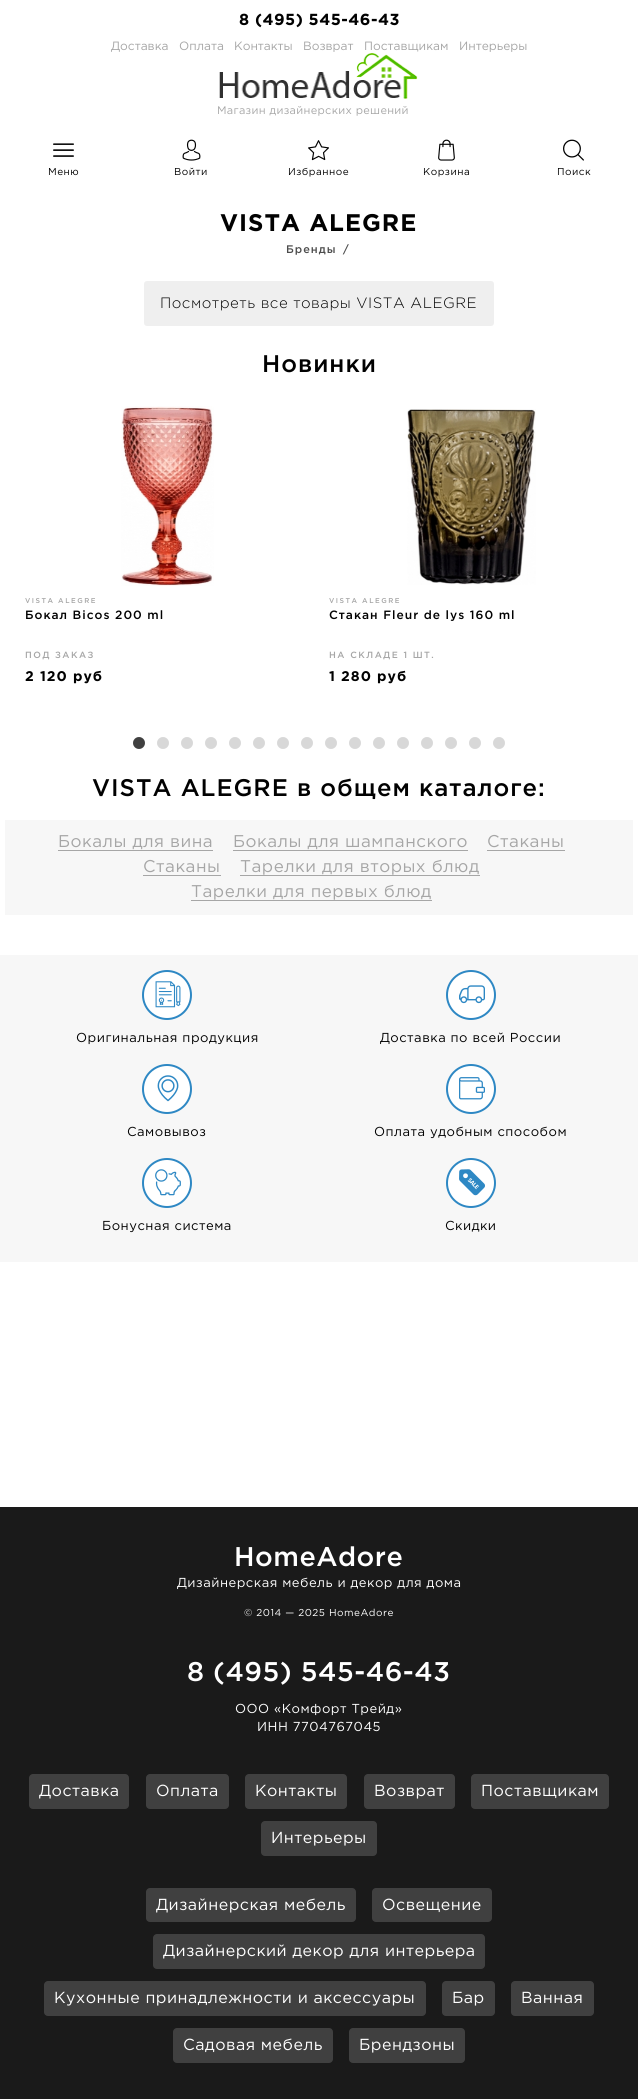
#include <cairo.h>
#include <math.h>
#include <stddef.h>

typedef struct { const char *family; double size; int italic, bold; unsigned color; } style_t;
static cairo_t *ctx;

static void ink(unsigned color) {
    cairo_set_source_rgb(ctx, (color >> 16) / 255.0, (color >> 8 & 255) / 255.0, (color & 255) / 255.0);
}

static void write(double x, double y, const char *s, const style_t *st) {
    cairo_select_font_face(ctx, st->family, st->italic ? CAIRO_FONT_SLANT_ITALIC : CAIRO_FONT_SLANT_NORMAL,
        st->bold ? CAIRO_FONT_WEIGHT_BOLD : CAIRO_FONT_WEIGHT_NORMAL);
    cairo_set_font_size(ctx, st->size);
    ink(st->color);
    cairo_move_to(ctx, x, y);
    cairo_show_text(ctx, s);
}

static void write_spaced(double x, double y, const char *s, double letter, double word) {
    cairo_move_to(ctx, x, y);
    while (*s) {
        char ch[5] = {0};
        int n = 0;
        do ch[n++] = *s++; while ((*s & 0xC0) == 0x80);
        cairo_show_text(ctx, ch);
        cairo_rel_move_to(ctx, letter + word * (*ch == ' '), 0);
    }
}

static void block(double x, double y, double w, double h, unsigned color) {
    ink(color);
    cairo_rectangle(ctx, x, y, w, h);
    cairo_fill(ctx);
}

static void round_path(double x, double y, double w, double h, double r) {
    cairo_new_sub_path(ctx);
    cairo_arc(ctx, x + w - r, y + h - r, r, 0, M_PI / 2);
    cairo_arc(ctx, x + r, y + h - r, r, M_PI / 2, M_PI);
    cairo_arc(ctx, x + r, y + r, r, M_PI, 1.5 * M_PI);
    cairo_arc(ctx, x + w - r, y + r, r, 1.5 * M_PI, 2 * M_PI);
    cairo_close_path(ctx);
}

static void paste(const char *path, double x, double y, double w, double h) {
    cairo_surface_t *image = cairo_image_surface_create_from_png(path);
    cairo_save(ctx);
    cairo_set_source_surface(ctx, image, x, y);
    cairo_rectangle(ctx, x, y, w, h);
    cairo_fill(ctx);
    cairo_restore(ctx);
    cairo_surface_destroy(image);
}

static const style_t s1 = {"Gotham", 12, 0, 0, 0xa6a6a6};

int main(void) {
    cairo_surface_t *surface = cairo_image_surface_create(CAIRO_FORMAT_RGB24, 638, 2099);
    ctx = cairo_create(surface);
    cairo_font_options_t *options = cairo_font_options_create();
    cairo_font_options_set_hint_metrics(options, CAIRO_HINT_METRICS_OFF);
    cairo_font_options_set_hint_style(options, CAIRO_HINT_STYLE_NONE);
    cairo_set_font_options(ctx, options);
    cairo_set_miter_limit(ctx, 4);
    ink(0xffffff);
    cairo_paint(ctx);
    cairo_select_font_face(ctx, "Gotham", CAIRO_FONT_SLANT_NORMAL, CAIRO_FONT_WEIGHT_BOLD);
    cairo_set_font_size(ctx, 16);
    ink(0x010101);
    write_spaced(239, 25, "8 (495) 545-46-43", 0.5, 0);
    write(111, 50, "Доставка", &s1);
    write(179, 50, "Оплата", &s1);
    write(234, 50, "Контакты", &s1);
    write(303, 50, "Возврат", &s1);
    write(364, 50, "Поставщикам", &s1);
    write(459, 50, "Интерьеры", &s1);
    paste("pic1.png", 219, 53, 199, 46);
    cairo_set_font_size(ctx, 11);
    write_spaced(217, 114, "Магазин дизайнерских решений", 0.3, 0);
    paste("pic2.png", 53, 143, 21, 14);
    cairo_set_font_size(ctx, 10);
    ink(0x010101);
    write_spaced(48, 175, "Меню", 0.5, 0);
    paste("pic3.png", 182, 139, 19, 22);
    write_spaced(174, 175, "Войти", 0.5, 0);
    paste("pic4.png", 308, 140, 21, 21);
    write_spaced(288, 175, "Избранное", 0.5, 0);
    paste("pic5.png", 438, 139, 17, 22);
    write_spaced(423, 175, "Корзина", 0.5, 0);
    paste("pic6.png", 563, 139, 21, 22);
    write_spaced(557, 175, "Поиск", 0.5, 0);
    cairo_select_font_face(ctx, "Gotham", CAIRO_FONT_SLANT_NORMAL, CAIRO_FONT_WEIGHT_BOLD);
    cairo_set_font_size(ctx, 24);
    write_spaced(220, 231, "VISTA ALEGRE", 1, 0);
    cairo_select_font_face(ctx, "Gotham Medium", CAIRO_FONT_SLANT_NORMAL, CAIRO_FONT_WEIGHT_NORMAL);
    cairo_set_font_size(ctx, 11);
    ink(0x4c4c4c);
    write_spaced(286, 253, "Бренды", 1, 0);
    write_spaced(343, 253, "/", 1, 0);
    ink(0xefefef);
    round_path(144, 281, 350, 45, 3);
    cairo_fill(ctx);
    cairo_select_font_face(ctx, "Gotham Light", CAIRO_FONT_SLANT_NORMAL, CAIRO_FONT_WEIGHT_NORMAL);
    cairo_set_font_size(ctx, 15);
    ink(0x010101);
    write_spaced(160, 308, "Посмотреть все товары VISTA ALEGRE", 0.5, 0);
    cairo_select_font_face(ctx, "Gotham Medium", CAIRO_FONT_SLANT_NORMAL, CAIRO_FONT_WEIGHT_NORMAL);
    cairo_set_font_size(ctx, 24);
    write_spaced(262, 372, "Новинки", 1, 0);
    paste("pic7.png", 121, 406, 93, 180);
    cairo_set_font_size(ctx, 7);
    ink(0xa6a6a6);
    write_spaced(25, 603, "VISTA ALEGRE", 1.5, 0);
    cairo_set_font_size(ctx, 12);
    ink(0x010101);
    write_spaced(25, 619, "Бокал Bicos 200 ml", 1, 0);
    cairo_set_font_size(ctx, 9);
    ink(0xa6a6a6);
    write_spaced(25, 658, "ПОД ЗАКАЗ", 1.5, 0);
    cairo_select_font_face(ctx, "Gotham", CAIRO_FONT_SLANT_NORMAL, CAIRO_FONT_WEIGHT_BOLD);
    cairo_set_font_size(ctx, 14);
    ink(0x010101);
    write_spaced(25, 681, "2 120 руб", 1, 0);
    paste("pic8.png", 407, 409, 129, 176);
    cairo_select_font_face(ctx, "Gotham Medium", CAIRO_FONT_SLANT_NORMAL, CAIRO_FONT_WEIGHT_NORMAL);
    cairo_set_font_size(ctx, 7);
    ink(0xa6a6a6);
    write_spaced(329, 603, "VISTA ALEGRE", 1.5, 0);
    cairo_set_font_size(ctx, 12);
    ink(0x010101);
    write_spaced(329, 619, "Стакан Fleur de lys 160 ml", 1, 0);
    cairo_set_font_size(ctx, 9);
    ink(0xa6a6a6);
    write_spaced(329, 658, "НА СКЛАДЕ 1 ШТ.", 1.5, 0);
    cairo_select_font_face(ctx, "Gotham", CAIRO_FONT_SLANT_NORMAL, CAIRO_FONT_WEIGHT_BOLD);
    cairo_set_font_size(ctx, 14);
    ink(0x010101);
    write_spaced(329, 681, "1 280 руб", 1, 0);
    paste("pic9.png", 133, 737, 12, 12);
    paste("pic10.png", 157, 737, 12, 12);
    paste("pic10.png", 181, 737, 12, 12);
    paste("pic10.png", 205, 737, 12, 12);
    paste("pic10.png", 229, 737, 12, 12);
    paste("pic10.png", 253, 737, 12, 12);
    paste("pic10.png", 277, 737, 12, 12);
    paste("pic10.png", 301, 737, 12, 12);
    paste("pic10.png", 325, 737, 12, 12);
    paste("pic10.png", 349, 737, 12, 12);
    paste("pic10.png", 373, 737, 12, 12);
    paste("pic10.png", 397, 737, 12, 12);
    paste("pic10.png", 421, 737, 12, 12);
    paste("pic10.png", 445, 737, 12, 12);
    paste("pic10.png", 469, 737, 12, 12);
    paste("pic10.png", 493, 737, 12, 12);
    cairo_select_font_face(ctx, "Gotham Medium", CAIRO_FONT_SLANT_NORMAL, CAIRO_FONT_WEIGHT_NORMAL);
    cairo_set_font_size(ctx, 24);
    write_spaced(92, 796, "VISTA ALEGRE в общем каталоге:", 1, 0);
    block(5, 820, 628, 95, 0xf7f7f7);
    cairo_select_font_face(ctx, "Gotham", CAIRO_FONT_SLANT_NORMAL, CAIRO_FONT_WEIGHT_NORMAL);
    cairo_set_font_size(ctx, 17);
    ink(0xa6a6a6);
    write_spaced(58, 847, "Бокалы для вина", 0.5, 0);
    block(58, 850, 155, 1, 0xa6a6a6);
    write_spaced(233, 847, "Бокалы для шампанского", 0.5, 0);
    block(233, 850, 235, 1, 0xa6a6a6);
    write_spaced(487, 847, "Стаканы", 0.5, 0);
    block(487, 850, 78, 1, 0xa6a6a6);
    write_spaced(143, 872, "Стаканы", 0.5, 0);
    block(143, 875, 78, 1, 0xa6a6a6);
    write_spaced(240, 872, "Тарелки для вторых блюд", 0.5, 0);
    block(240, 875, 240, 1, 0xa6a6a6);
    write_spaced(191, 897, "Тарелки для первых блюд", 0.5, 0);
    block(191, 900, 241, 1, 0xa6a6a6);
    block(0, 955, 638, 307, 0xf7f7f7);
    ink(0xffffff);
    cairo_new_path(ctx);
    cairo_arc(ctx, 167, 995, 24, 0, 2 * M_PI);
    cairo_fill_preserve(ctx);
    ink(0x2e88c4);
    cairo_stroke(ctx);
    paste("pic11.png", 155, 981, 26, 27);
    cairo_set_font_size(ctx, 13);
    ink(0x010101);
    write_spaced(76, 1042, "Оригинальная продукция", 0.5, 0);
    ink(0xffffff);
    cairo_new_path(ctx);
    cairo_arc(ctx, 471, 995, 24, 0, 2 * M_PI);
    cairo_fill_preserve(ctx);
    ink(0x2e88c4);
    cairo_stroke(ctx);
    paste("pic12.png", 459, 985, 26, 19);
    ink(0x010101);
    write_spaced(380, 1042, "Доставка по всей России", 0.5, 0);
    ink(0xffffff);
    cairo_new_path(ctx);
    cairo_arc(ctx, 167, 1089, 24, 0, 2 * M_PI);
    cairo_fill_preserve(ctx);
    ink(0x2e88c4);
    cairo_stroke(ctx);
    paste("pic13.png", 157, 1075, 22, 27);
    ink(0x010101);
    write_spaced(127, 1136, "Самовывоз", 0.5, 0);
    ink(0xffffff);
    cairo_new_path(ctx);
    cairo_arc(ctx, 471, 1089, 24, 0, 2 * M_PI);
    cairo_fill_preserve(ctx);
    ink(0x2e88c4);
    cairo_stroke(ctx);
    paste("pic14.png", 459, 1077, 26, 23);
    ink(0x010101);
    write_spaced(374, 1136, "Оплата удобным способом", 0.5, 0);
    ink(0xffffff);
    cairo_new_path(ctx);
    cairo_arc(ctx, 167, 1183, 24, 0, 2 * M_PI);
    cairo_fill_preserve(ctx);
    ink(0x2e88c4);
    cairo_stroke(ctx);
    paste("pic15.png", 155, 1169, 26, 27);
    ink(0x010101);
    write_spaced(102, 1230, "Бонусная система", 0.5, 0);
    ink(0xffffff);
    cairo_new_path(ctx);
    cairo_arc(ctx, 471, 1183, 24, 0, 2 * M_PI);
    cairo_fill_preserve(ctx);
    ink(0x2e88c4);
    cairo_stroke(ctx);
    paste("pic16.png", 459, 1169, 26, 27);
    ink(0x010101);
    write_spaced(445, 1230, "Скидки", 0.5, 0);
    block(0, 1507, 638, 592, 0x1a1a1a);
    cairo_select_font_face(ctx, "Gotham Medium", CAIRO_FONT_SLANT_NORMAL, CAIRO_FONT_WEIGHT_NORMAL);
    cairo_set_font_size(ctx, 27);
    ink(0xffffff);
    write_spaced(234, 1566, "HomeAdore", 0.5, 0);
    cairo_select_font_face(ctx, "Gotham", CAIRO_FONT_SLANT_NORMAL, CAIRO_FONT_WEIGHT_NORMAL);
    cairo_set_font_size(ctx, 13);
    write_spaced(177, 1587, "Дизайнерская мебель и декор для дома", 0.5, 0);
    cairo_set_font_size(ctx, 10);
    write_spaced(244, 1616, "© 2014 — 2025 HomeAdore", 0.5, 0);
    cairo_select_font_face(ctx, "Gotham Medium", CAIRO_FONT_SLANT_NORMAL, CAIRO_FONT_WEIGHT_NORMAL);
    cairo_set_font_size(ctx, 27);
    write_spaced(187, 1681, "8 (495) 545-46-43", 0.5, 0);
    cairo_select_font_face(ctx, "Gotham", CAIRO_FONT_SLANT_NORMAL, CAIRO_FONT_WEIGHT_NORMAL);
    cairo_set_font_size(ctx, 13);
    write_spaced(235, 1713, "ООО «Комфорт Трейд»", 0.5, 0);
    write_spaced(257, 1731, "ИНН 7704767045", 0.5, 0);
    ink(0x404040);
    round_path(29, 1774, 100, 35, 4);
    cairo_fill(ctx);
    cairo_set_font_size(ctx, 16);
    ink(0xffffff);
    write_spaced(39, 1796, "Доставка", 0.5, 0);
    ink(0x404040);
    round_path(146, 1774, 83, 35, 4);
    cairo_fill(ctx);
    ink(0xffffff);
    write_spaced(156, 1796, "Оплата", 0.5, 0);
    ink(0x404040);
    round_path(245, 1774, 102, 35, 4);
    cairo_fill(ctx);
    ink(0xffffff);
    write_spaced(255, 1796, "Контакты", 0.5, 0);
    ink(0x404040);
    round_path(364, 1774, 91, 35, 4);
    cairo_fill(ctx);
    ink(0xffffff);
    write_spaced(374, 1796, "Возврат", 0.5, 0);
    ink(0x404040);
    round_path(471, 1774, 138, 35, 4);
    cairo_fill(ctx);
    ink(0xffffff);
    write_spaced(481, 1796, "Поставщикам", 0.5, 0);
    ink(0x404040);
    round_path(261, 1821, 116, 35, 4);
    cairo_fill(ctx);
    ink(0xffffff);
    write_spaced(271, 1843, "Интерьеры", 0.5, 0);
    ink(0x404040);
    round_path(146, 1888, 210, 34, 4);
    cairo_fill(ctx);
    ink(0xffffff);
    write_spaced(156, 1910, "Дизайнерская мебель", 0.5, 0);
    ink(0x404040);
    round_path(372, 1888, 120, 34, 4);
    cairo_fill(ctx);
    ink(0xffffff);
    write_spaced(382, 1910, "Освещение", 0.5, 0);
    ink(0x404040);
    round_path(153, 1934, 332, 35, 4);
    cairo_fill(ctx);
    ink(0xffffff);
    write_spaced(163, 1956, "Дизайнерский декор для интерьера", 0.5, 0);
    ink(0x404040);
    round_path(44, 1981, 382, 35, 4);
    cairo_fill(ctx);
    ink(0xffffff);
    write_spaced(54, 2003, "Кухонные принадлежности и аксессуары", 0.5, 0);
    ink(0x404040);
    round_path(442, 1981, 53, 35, 4);
    cairo_fill(ctx);
    ink(0xffffff);
    write_spaced(452, 2003, "Бар", 0.5, 0);
    ink(0x404040);
    round_path(511, 1981, 83, 35, 4);
    cairo_fill(ctx);
    ink(0xffffff);
    write_spaced(521, 2003, "Ванная", 0.5, 0);
    ink(0x404040);
    round_path(173, 2028, 160, 35, 4);
    cairo_fill(ctx);
    ink(0xffffff);
    write_spaced(183, 2050, "Садовая мебель", 0.5, 0);
    ink(0x404040);
    round_path(349, 2028, 116, 35, 4);
    cairo_fill(ctx);
    ink(0xffffff);
    write_spaced(359, 2050, "Брендзоны", 0.5, 0);
    cairo_surface_write_to_png(surface, "screenshot.png");
    cairo_font_options_destroy(options);
    cairo_destroy(ctx);
    cairo_surface_destroy(surface);
    return 0;
}
